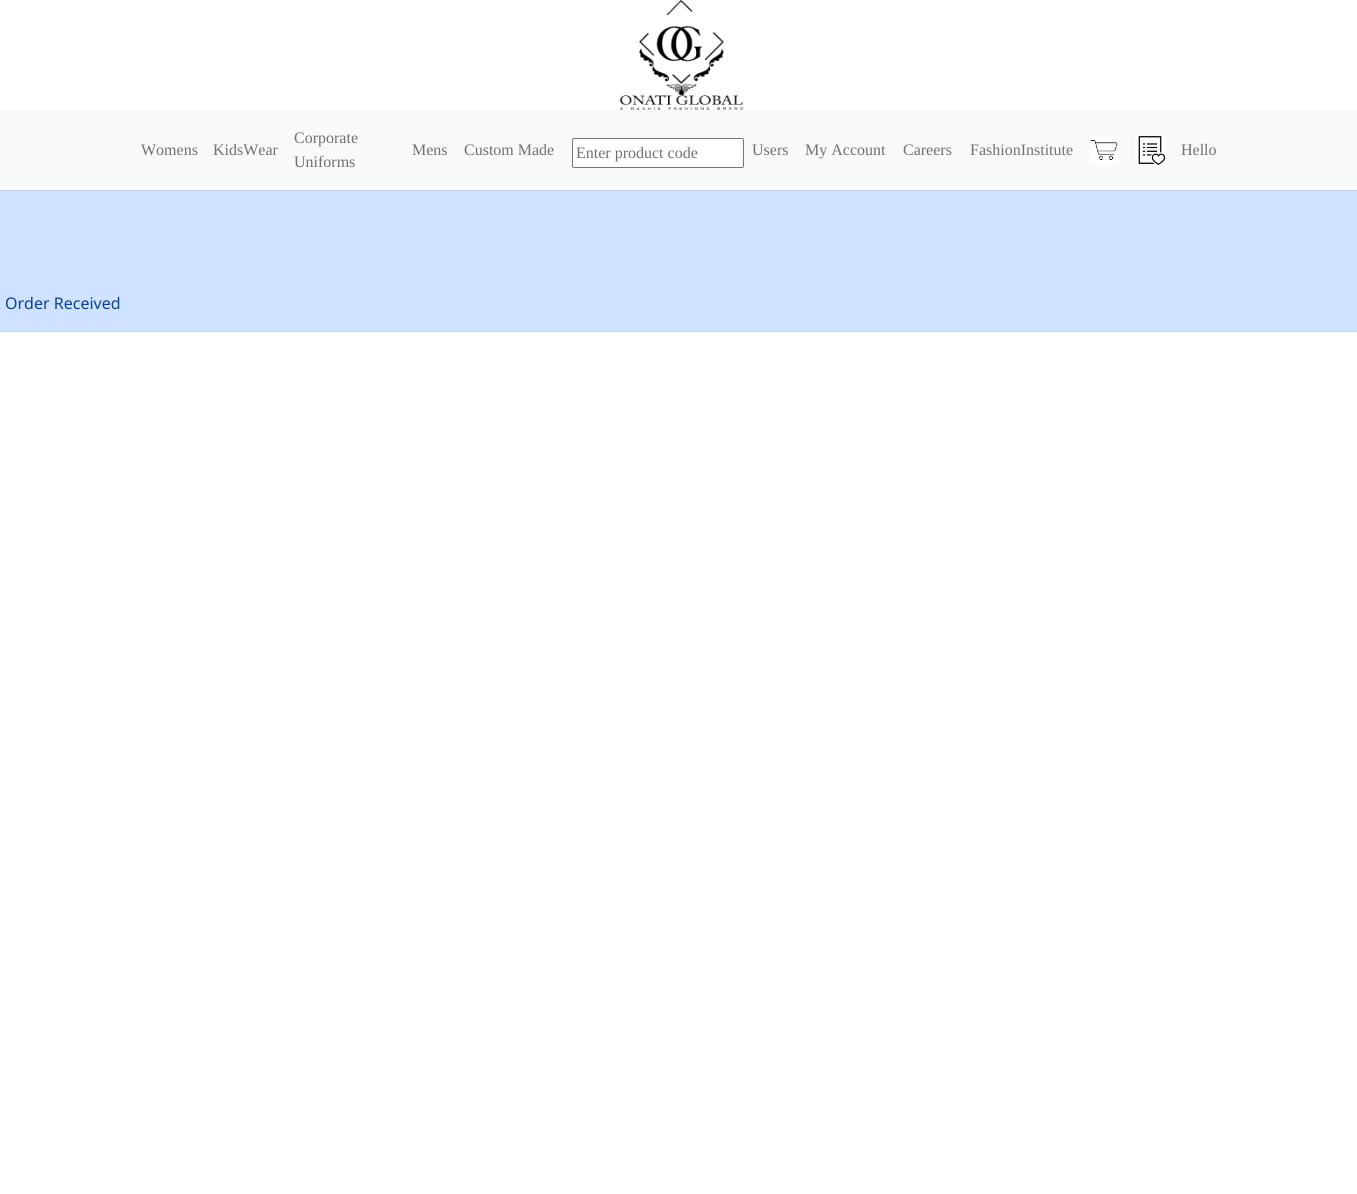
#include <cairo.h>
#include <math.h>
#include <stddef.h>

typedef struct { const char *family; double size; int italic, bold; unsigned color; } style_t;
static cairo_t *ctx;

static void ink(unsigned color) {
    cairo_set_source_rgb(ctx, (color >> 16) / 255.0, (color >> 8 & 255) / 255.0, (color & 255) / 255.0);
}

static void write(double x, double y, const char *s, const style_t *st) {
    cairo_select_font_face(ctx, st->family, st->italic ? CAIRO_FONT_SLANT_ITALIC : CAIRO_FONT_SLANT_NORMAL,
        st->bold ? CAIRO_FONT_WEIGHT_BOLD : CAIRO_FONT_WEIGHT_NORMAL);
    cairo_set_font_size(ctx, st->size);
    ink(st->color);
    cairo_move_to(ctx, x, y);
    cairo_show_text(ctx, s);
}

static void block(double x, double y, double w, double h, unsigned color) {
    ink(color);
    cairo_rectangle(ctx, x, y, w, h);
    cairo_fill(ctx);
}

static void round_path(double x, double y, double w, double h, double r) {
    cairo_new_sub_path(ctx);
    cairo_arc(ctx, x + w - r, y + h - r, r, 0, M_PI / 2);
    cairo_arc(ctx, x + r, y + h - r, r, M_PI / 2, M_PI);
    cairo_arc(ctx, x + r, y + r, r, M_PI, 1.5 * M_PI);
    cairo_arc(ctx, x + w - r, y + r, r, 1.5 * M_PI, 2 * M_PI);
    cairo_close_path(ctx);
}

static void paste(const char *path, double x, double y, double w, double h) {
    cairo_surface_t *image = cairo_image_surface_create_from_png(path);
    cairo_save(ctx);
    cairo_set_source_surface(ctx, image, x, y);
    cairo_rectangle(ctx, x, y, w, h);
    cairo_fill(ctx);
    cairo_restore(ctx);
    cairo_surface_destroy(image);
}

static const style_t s1 = {"Liberation Serif", 16, 0, 0, 0x707071};
static const style_t s2 = {"Noto Sans", 16, 0, 0, 0x084298};

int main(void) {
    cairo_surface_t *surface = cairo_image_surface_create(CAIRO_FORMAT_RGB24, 1357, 1194);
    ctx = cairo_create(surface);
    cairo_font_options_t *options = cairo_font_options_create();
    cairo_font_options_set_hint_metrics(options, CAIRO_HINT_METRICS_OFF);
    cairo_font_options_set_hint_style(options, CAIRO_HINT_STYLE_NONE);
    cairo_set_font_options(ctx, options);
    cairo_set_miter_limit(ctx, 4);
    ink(0xffffff);
    cairo_paint(ctx);
    paste("pic1.png", 619, 0, 125, 110);
    block(0, 110, 1357, 80, 0xf8f9fa);
    write(141, 155, "Womens", &s1);
    write(213, 155, "KidsWear", &s1);
    write(294, 143, "Corporate", &s1);
    write(294, 167, "Uniforms", &s1);
    write(412, 155, "Mens", &s1);
    write(464, 155, "Custom Made", &s1);
    ink(0xffffff);
    round_path(572.5, 138.5, 171, 29, 1.5);
    cairo_fill_preserve(ctx);
    ink(0x767676);
    cairo_set_line_width(ctx, 1);
    cairo_stroke(ctx);
    write(576, 158, "Enter product code", &s1);
    write(752, 155, "Users", &s1);
    write(805, 155, "My Account", &s1);
    write(903, 155, "Careers", &s1);
    write(970, 155, "FashionInstitute", &s1);
    paste("pic2.png", 1089, 135, 30, 30);
    paste("pic3.png", 1135, 135, 30, 30);
    write(1181, 155, "Hello", &s1);
    ink(0xcfe2ff);
    cairo_rectangle(ctx, -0.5, 190.5, 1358, 141);
    cairo_fill_preserve(ctx);
    ink(0xb6d4fe);
    cairo_stroke(ctx);
    write(5, 309, "Order Received", &s2);
    cairo_surface_write_to_png(surface, "screenshot.png");
    cairo_font_options_destroy(options);
    cairo_destroy(ctx);
    cairo_surface_destroy(surface);
    return 0;
}
